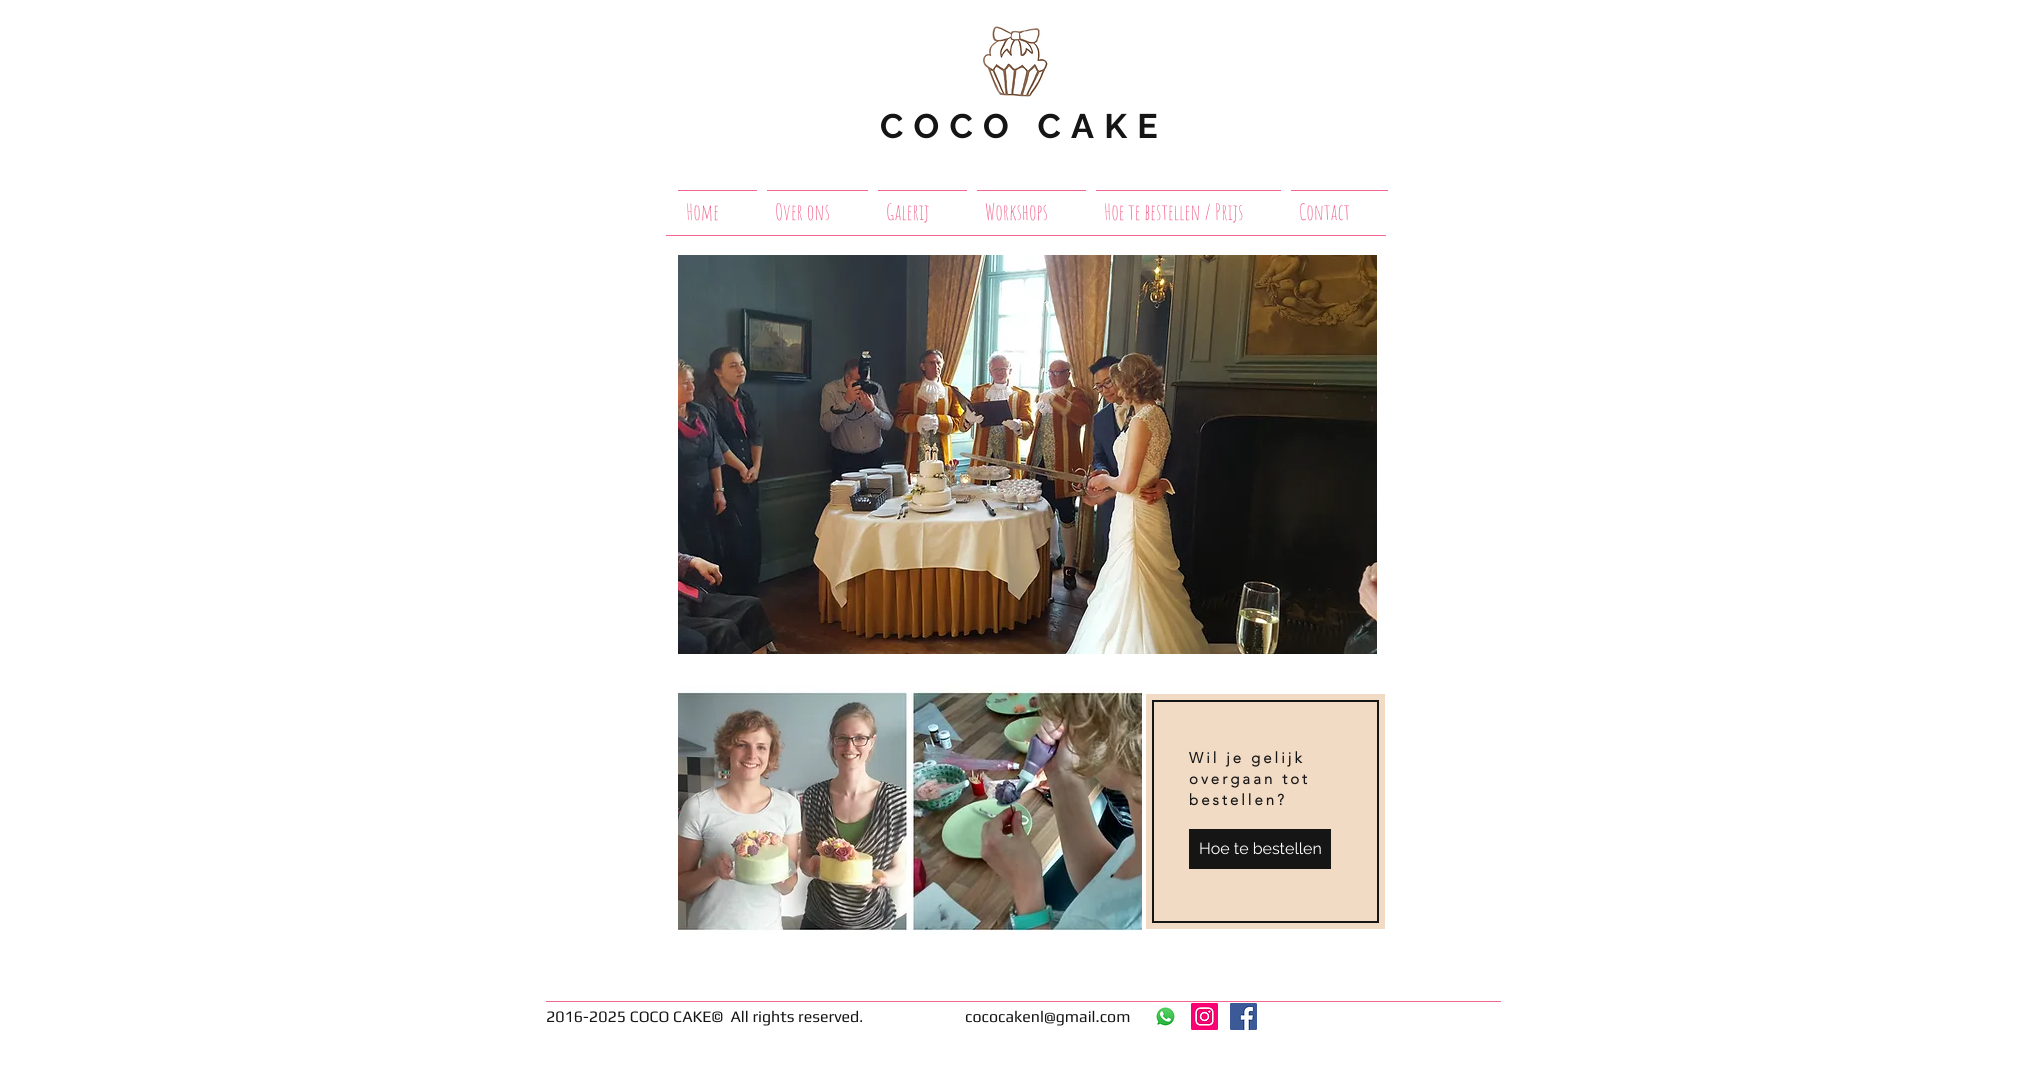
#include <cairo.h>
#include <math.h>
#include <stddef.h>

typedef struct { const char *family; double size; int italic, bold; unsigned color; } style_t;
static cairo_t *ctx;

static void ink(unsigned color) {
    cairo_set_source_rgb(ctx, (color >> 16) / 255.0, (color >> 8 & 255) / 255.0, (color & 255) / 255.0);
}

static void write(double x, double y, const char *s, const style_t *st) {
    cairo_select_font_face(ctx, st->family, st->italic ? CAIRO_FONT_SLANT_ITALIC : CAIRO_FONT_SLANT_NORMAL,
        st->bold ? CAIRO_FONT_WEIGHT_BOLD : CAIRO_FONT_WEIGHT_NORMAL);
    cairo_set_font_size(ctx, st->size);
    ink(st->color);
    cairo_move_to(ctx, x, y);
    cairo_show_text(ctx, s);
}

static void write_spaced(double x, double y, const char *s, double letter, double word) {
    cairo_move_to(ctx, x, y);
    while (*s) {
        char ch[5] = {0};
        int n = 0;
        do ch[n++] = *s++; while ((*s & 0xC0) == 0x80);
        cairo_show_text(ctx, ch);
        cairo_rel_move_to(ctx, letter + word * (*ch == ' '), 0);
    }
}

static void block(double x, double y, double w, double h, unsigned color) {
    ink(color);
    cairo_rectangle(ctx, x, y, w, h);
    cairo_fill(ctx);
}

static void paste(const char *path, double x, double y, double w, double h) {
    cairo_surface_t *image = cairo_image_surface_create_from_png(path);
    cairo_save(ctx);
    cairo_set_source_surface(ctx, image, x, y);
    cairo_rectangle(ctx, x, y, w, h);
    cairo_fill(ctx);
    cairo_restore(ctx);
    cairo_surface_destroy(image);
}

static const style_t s1 = {"Amatic SC", 22, 0, 0, 0xf2668f};
static const style_t s2 = {"Raleway", 16, 0, 0, 0xffffff};
static const style_t s3 = {"Play", 16, 0, 0, 0x151515};

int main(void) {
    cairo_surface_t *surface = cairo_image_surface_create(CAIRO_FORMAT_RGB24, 2024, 1076);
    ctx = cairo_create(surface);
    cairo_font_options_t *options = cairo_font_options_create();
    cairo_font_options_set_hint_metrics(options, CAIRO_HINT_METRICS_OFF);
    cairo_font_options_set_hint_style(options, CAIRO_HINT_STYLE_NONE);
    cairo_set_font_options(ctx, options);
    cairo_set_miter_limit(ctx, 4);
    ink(0xffffff);
    cairo_paint(ctx);
    paste("pic1.png", 983, 26, 65, 71);
    cairo_select_font_face(ctx, "Raleway", CAIRO_FONT_SLANT_NORMAL, CAIRO_FONT_WEIGHT_BOLD);
    cairo_set_font_size(ctx, 34);
    ink(0x151515);
    write_spaced(880, 138, "COCO CAKE", 10.25, 0);
    block(678, 190, 79, 1, 0xf2668f);
    write(686, 220, "Home", &s1);
    block(767, 190, 101, 1, 0xf2668f);
    write(775, 220, "Over ons", &s1);
    block(878, 190, 89, 1, 0xf2668f);
    write(886, 220, "Galerij", &s1);
    block(977, 190, 109, 1, 0xf2668f);
    write(985, 220, "Workshops", &s1);
    block(1096, 190, 185, 1, 0xf2668f);
    write(1104, 220, "Hoe te bestellen / Prijs", &s1);
    block(1291, 190, 97, 1, 0xf2668f);
    write(1299, 220, "Contact", &s1);
    block(666, 235, 720, 1, 0xf2668f);
    paste("pic2.png", 678, 255, 699, 399);
    paste("pic3.png", 678, 686, 464, 248);
    block(1146, 694, 239, 235, 0xf2dbc5);
    cairo_rectangle(ctx, 1153, 701, 225, 221);
    ink(0x151515);
    cairo_stroke(ctx);
    cairo_select_font_face(ctx, "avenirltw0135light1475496", CAIRO_FONT_SLANT_NORMAL, CAIRO_FONT_WEIGHT_BOLD);
    cairo_set_font_size(ctx, 15);
    write_spaced(1189, 763, "Wil je gelijk", 3, 0);
    write_spaced(1189, 784, "overgaan tot", 3, 0);
    write_spaced(1189, 805, "bestellen?", 3, 0);
    block(1189, 829, 142, 40, 0x151515);
    write(1199, 854, "Hoe te bestellen", &s2);
    block(546, 1001, 955, 1, 0xf2668f);
    write(546, 1022, "2016-2025 COCO CAKE©  All rights reserved.", &s3);
    write(965, 1022, "cococakenl@gmail.com", &s3);
    paste("pic4.png", 1155, 1007, 22, 21);
    paste("pic5.png", 1191, 1003, 27, 27);
    paste("pic6.png", 1230, 1003, 27, 27);
    cairo_surface_write_to_png(surface, "screenshot.png");
    cairo_font_options_destroy(options);
    cairo_destroy(ctx);
    cairo_surface_destroy(surface);
    return 0;
}
